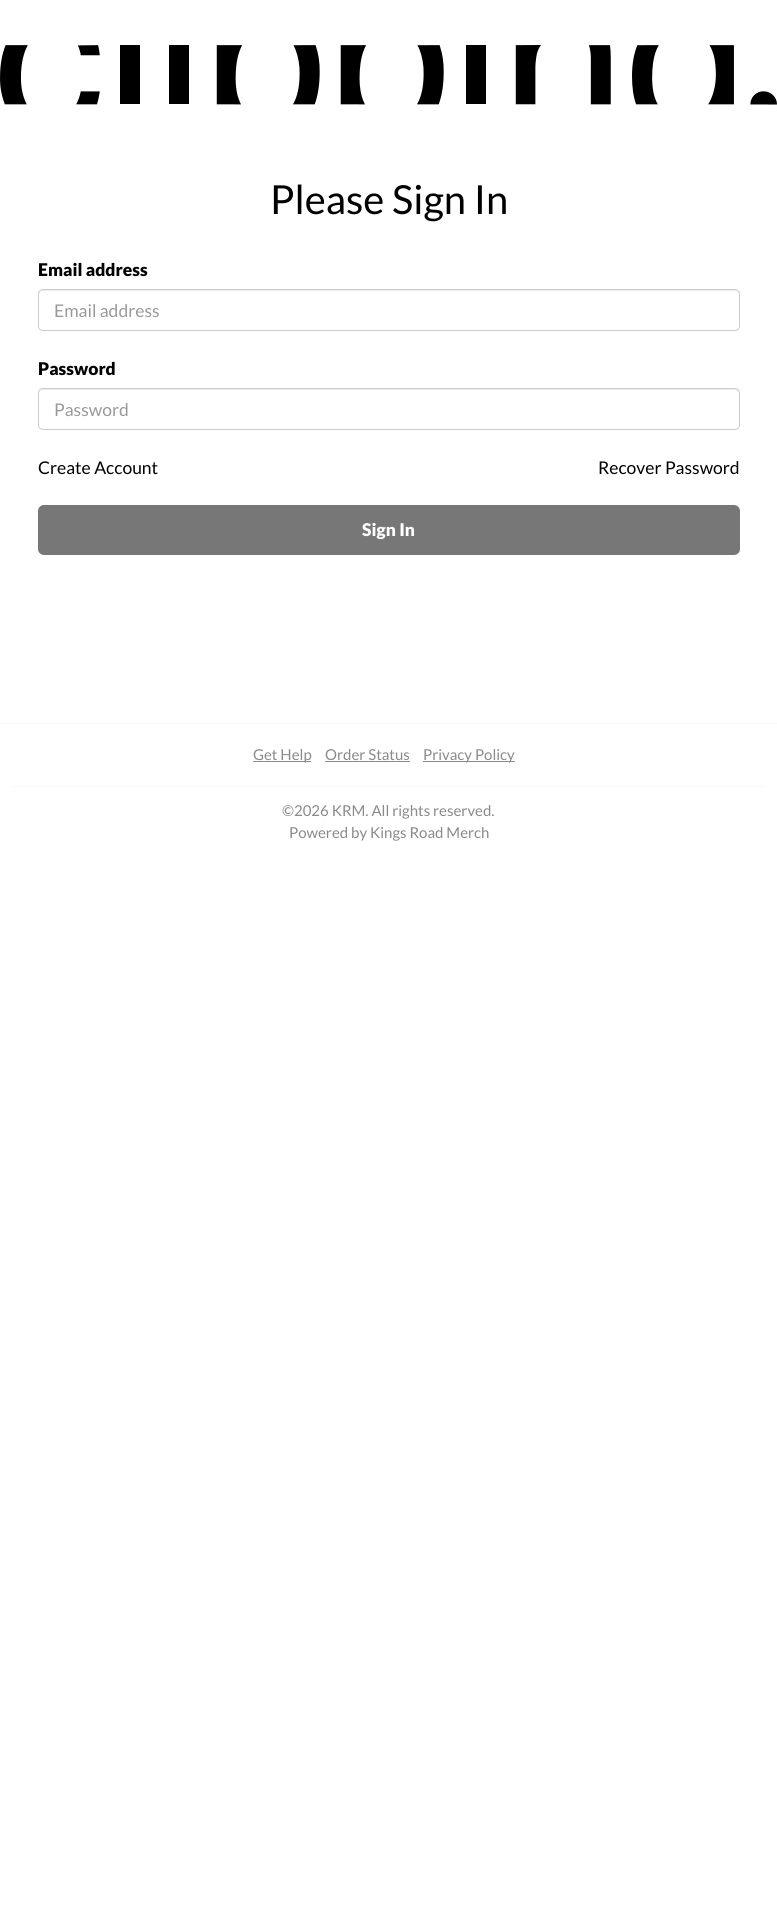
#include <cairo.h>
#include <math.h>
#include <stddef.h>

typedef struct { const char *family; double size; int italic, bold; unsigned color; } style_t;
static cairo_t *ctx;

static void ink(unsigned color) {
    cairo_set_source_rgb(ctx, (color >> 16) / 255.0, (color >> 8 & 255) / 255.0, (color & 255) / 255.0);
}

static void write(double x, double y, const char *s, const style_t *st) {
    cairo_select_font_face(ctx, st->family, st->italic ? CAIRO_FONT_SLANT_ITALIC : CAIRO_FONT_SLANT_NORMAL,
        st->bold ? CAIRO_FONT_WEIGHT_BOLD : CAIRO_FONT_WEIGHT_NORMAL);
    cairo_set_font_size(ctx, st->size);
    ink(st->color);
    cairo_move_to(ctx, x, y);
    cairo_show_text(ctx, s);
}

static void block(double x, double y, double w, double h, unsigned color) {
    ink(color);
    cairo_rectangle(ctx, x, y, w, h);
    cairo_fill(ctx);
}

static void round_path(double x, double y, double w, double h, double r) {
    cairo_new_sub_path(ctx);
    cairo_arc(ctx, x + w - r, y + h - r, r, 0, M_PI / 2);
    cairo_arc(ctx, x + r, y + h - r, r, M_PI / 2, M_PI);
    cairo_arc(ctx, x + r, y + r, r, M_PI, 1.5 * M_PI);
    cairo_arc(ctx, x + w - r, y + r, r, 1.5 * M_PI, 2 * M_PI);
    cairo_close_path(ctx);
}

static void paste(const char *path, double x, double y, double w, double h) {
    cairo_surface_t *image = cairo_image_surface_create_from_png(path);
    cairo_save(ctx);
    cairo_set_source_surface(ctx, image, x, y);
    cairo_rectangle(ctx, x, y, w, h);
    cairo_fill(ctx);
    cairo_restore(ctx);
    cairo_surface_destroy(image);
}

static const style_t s1 = {"Lato", 40, 0, 0, 0x000000};
static const style_t s2 = {"Lato Black", 17.5, 0, 0, 0x000000};
static const style_t s3 = {"Lato", 17.5, 0, 0, 0x999999};
static const style_t s4 = {"Lato", 17.5, 0, 0, 0x000000};
static const style_t s5 = {"Lato Black", 17.5, 0, 0, 0xffffff};
static const style_t s6 = {"Lato", 15, 0, 0, 0x8a8a8a};

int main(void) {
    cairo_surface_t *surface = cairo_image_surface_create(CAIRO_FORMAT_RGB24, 777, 1920);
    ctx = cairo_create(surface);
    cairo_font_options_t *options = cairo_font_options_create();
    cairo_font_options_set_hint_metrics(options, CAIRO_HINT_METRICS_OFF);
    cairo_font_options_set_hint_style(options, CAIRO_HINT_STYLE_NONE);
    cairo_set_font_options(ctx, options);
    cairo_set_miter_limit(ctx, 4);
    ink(0xffffff);
    cairo_paint(ctx);
    paste("pic1.png", 0, 45, 777, 60);
    write(270, 214, "Please Sign In", &s1);
    write(38, 276, "Email address", &s2);
    ink(0xececec);
    cairo_new_path(ctx);
    cairo_move_to(ctx, 42, 291);
    cairo_line_to(ctx, 735, 291);
    cairo_curve_to(ctx, 737, 291, 739, 293, 739, 295);
    cairo_curve_to(ctx, 739, 292, 738, 290, 735, 290);
    cairo_line_to(ctx, 43, 290);
    cairo_line_to(ctx, 40, 291);
    cairo_line_to(ctx, 39, 292);
    cairo_line_to(ctx, 39, 295);
    cairo_curve_to(ctx, 39, 293, 40, 291, 42, 291);
    cairo_close_path(ctx);
    cairo_fill(ctx);
    round_path(38.5, 289.5, 701, 41, 4.5);
    ink(0xcccccc);
    cairo_set_line_width(ctx, 1);
    cairo_stroke(ctx);
    write(54, 317, "Email address", &s3);
    write(38, 375, "Password", &s2);
    ink(0xececec);
    cairo_new_path(ctx);
    cairo_move_to(ctx, 42, 390);
    cairo_line_to(ctx, 735, 390);
    cairo_curve_to(ctx, 737, 390, 739, 392, 739, 394);
    cairo_curve_to(ctx, 739, 391, 738, 389, 735, 389);
    cairo_line_to(ctx, 43, 389);
    cairo_line_to(ctx, 40, 390);
    cairo_line_to(ctx, 39, 391);
    cairo_line_to(ctx, 39, 394);
    cairo_curve_to(ctx, 39, 392, 40, 390, 42, 390);
    cairo_close_path(ctx);
    cairo_fill(ctx);
    round_path(38.5, 388.5, 701, 41, 4.5);
    ink(0xcccccc);
    cairo_stroke(ctx);
    write(54, 416, "Password", &s3);
    write(38, 474, "Create Account", &s4);
    write(598, 474, "Recover Password", &s4);
    ink(0x777777);
    round_path(38, 505, 702, 50, 6);
    cairo_fill(ctx);
    write(362, 536, "Sign In", &s5);
    block(0, 723, 777, 1, 0xf9f9f9);
    block(253, 761, 58, 1, 0x8a8a8a);
    write(253, 760, "Get Help", &s6);
    write(325, 760, "Order Status", &s6);
    block(325, 761, 85, 1, 0x8a8a8a);
    block(423, 761, 92, 1, 0x8a8a8a);
    write(423, 760, "Privacy Policy", &s6);
    block(13, 786, 752, 1, 0xf9f9f9);
    write(282, 816, "©2026 KRM. All rights reserved.", &s6);
    write(289, 838, "Powered by Kings Road Merch", &s6);
    cairo_surface_write_to_png(surface, "screenshot.png");
    cairo_font_options_destroy(options);
    cairo_destroy(ctx);
    cairo_surface_destroy(surface);
    return 0;
}
